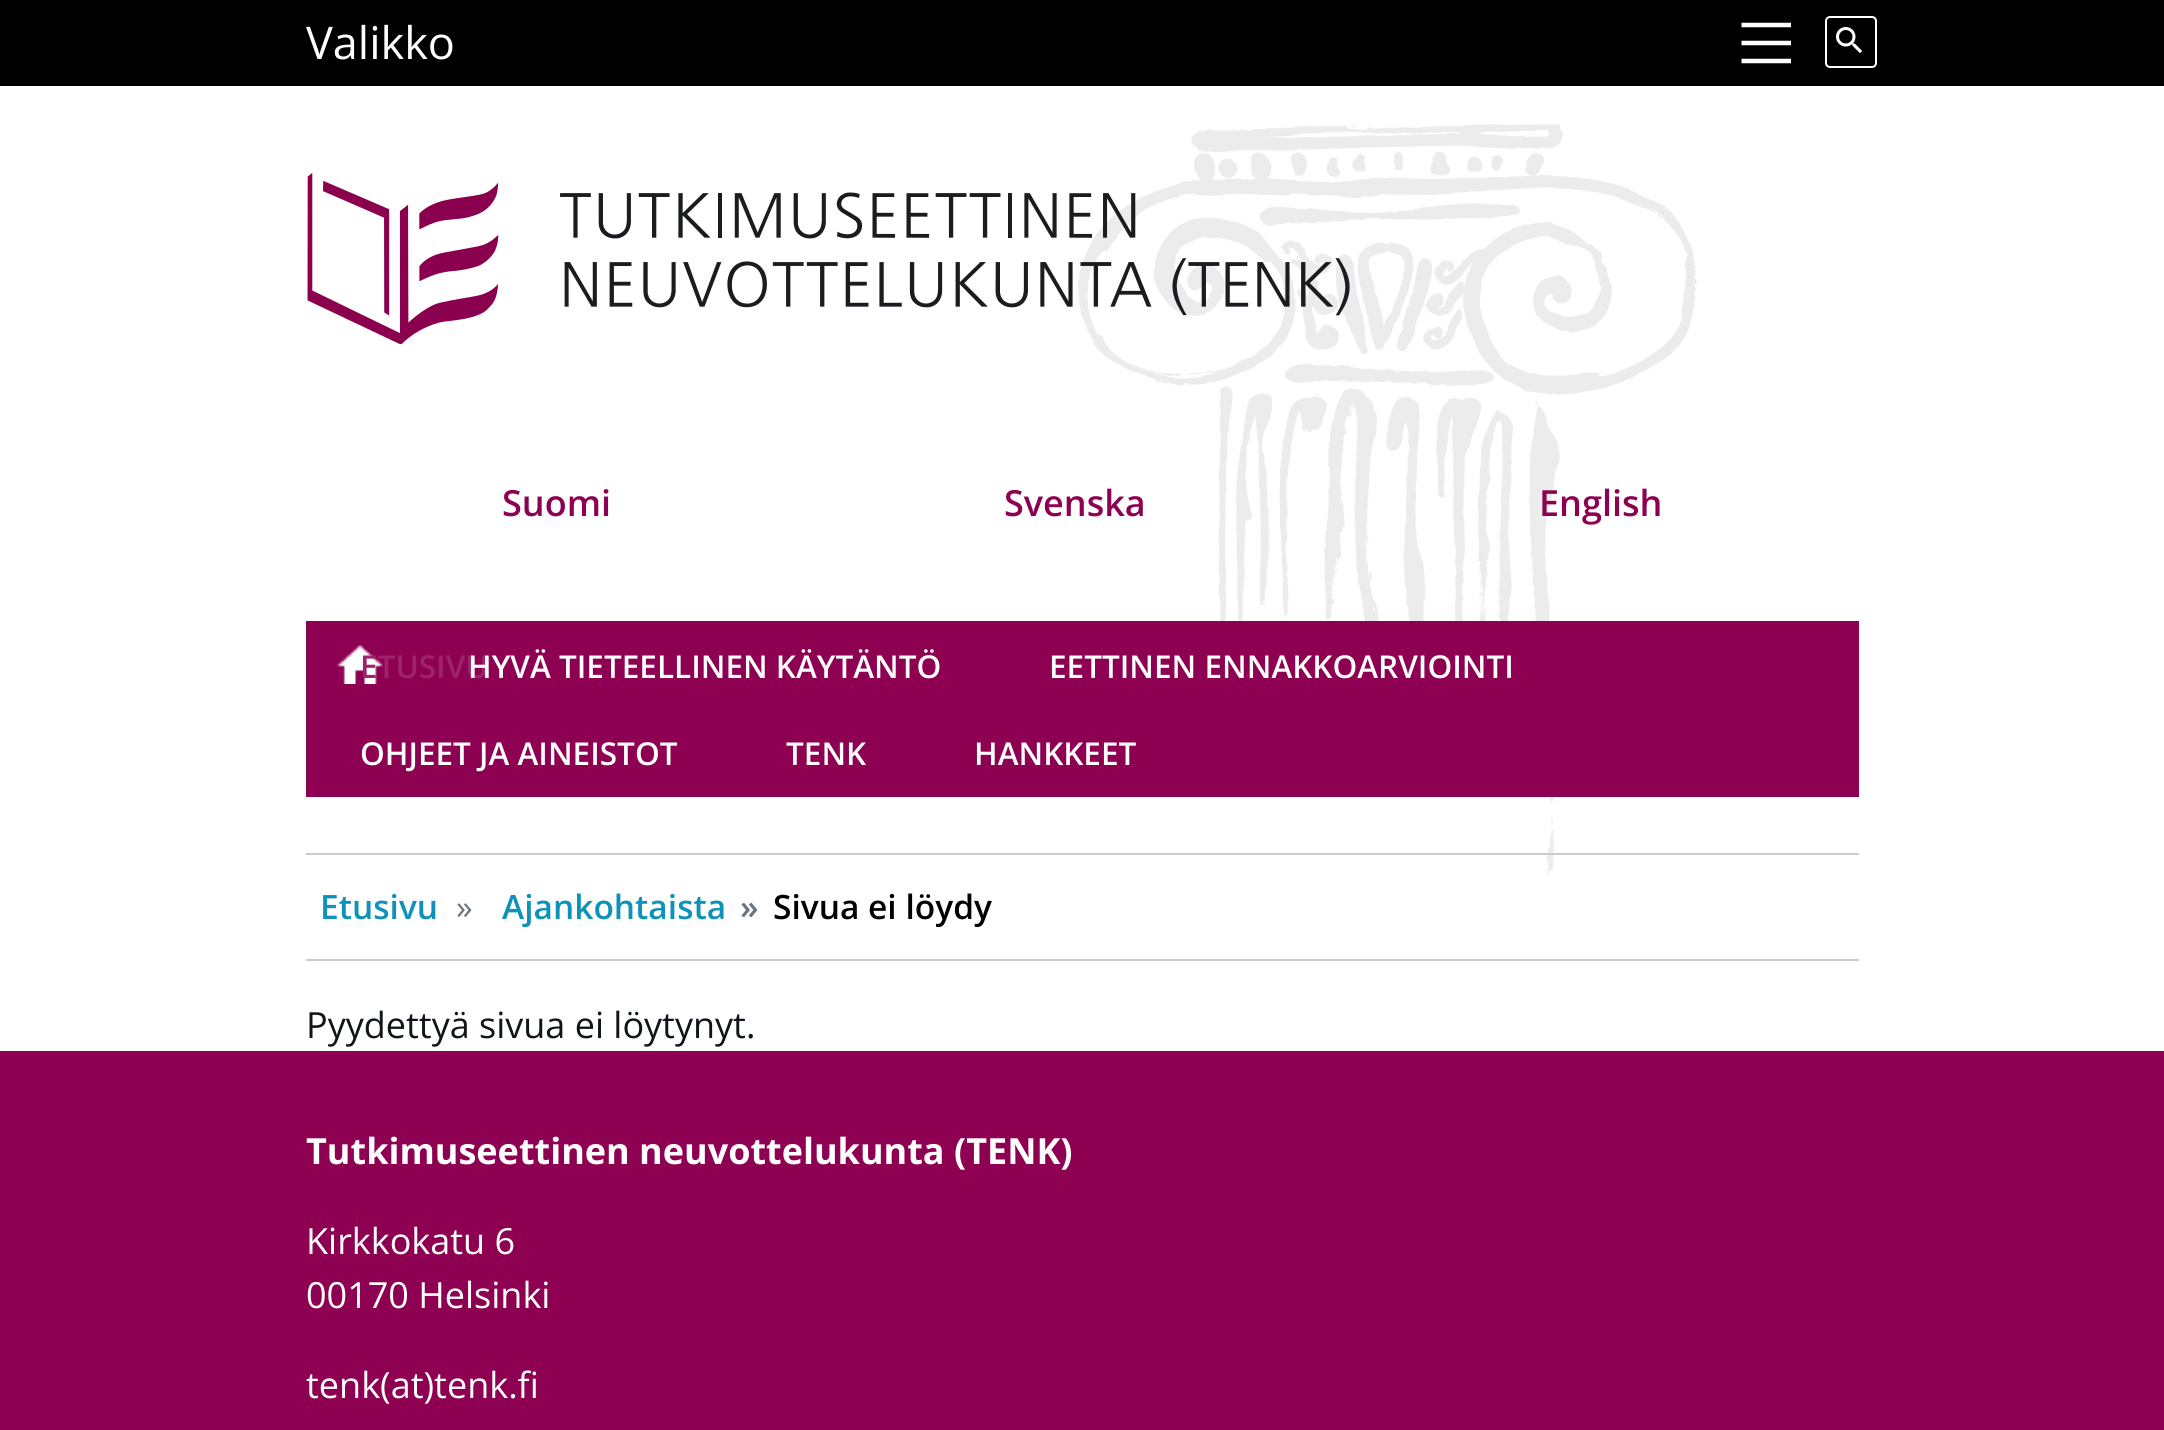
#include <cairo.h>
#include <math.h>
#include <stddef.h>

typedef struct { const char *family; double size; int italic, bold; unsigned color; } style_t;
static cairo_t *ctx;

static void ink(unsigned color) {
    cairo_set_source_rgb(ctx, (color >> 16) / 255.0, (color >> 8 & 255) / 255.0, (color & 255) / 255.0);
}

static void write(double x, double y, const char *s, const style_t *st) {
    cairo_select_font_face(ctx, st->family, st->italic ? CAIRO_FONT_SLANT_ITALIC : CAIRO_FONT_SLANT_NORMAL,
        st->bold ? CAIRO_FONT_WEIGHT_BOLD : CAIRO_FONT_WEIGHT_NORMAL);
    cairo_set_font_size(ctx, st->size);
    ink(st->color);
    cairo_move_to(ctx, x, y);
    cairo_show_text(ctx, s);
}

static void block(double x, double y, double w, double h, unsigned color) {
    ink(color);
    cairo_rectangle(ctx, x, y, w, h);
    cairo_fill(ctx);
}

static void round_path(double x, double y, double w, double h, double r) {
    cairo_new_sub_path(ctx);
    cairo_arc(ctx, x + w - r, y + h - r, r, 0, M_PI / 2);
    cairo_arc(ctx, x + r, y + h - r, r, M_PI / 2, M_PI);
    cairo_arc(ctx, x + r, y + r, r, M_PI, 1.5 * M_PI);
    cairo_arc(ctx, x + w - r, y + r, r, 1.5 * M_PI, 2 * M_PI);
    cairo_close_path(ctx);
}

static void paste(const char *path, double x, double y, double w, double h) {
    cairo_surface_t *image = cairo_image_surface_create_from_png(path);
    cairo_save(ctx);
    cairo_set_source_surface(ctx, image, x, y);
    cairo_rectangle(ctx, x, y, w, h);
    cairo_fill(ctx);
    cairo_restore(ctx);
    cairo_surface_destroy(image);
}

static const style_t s1 = {"Open Sans", 45, 0, 0, 0xffffff};
static const style_t s2 = {"Open Sans SemiBold", 36, 0, 0, 0x8d0052};
static const style_t s3 = {"Open Sans SemiBold", 31.5, 0, 0, 0x9d246a};
static const style_t s4 = {"Open Sans SemiBold", 31.5, 0, 0, 0xffffff};
static const style_t s5 = {"Open Sans SemiBold", 33.5, 0, 0, 0x0f92b9};
static const style_t s6 = {"Open Sans", 33.5, 0, 0, 0x6c757d};
static const style_t s7 = {"Open Sans SemiBold", 33.5, 0, 0, 0x6c757d};
static const style_t s8 = {"Open Sans SemiBold", 33.5, 0, 0, 0x000000};
static const style_t s9 = {"Open Sans", 36, 0, 0, 0x11151a};
static const style_t s10 = {"Open Sans", 36, 0, 1, 0xffffff};
static const style_t s11 = {"Open Sans", 36, 0, 0, 0xffffff};

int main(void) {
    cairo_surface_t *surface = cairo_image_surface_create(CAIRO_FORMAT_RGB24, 2164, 1430);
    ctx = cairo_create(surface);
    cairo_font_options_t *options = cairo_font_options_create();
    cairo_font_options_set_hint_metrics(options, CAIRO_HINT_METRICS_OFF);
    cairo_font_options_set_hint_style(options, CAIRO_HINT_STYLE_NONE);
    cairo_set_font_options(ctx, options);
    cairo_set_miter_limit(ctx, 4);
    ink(0xffffff);
    cairo_paint(ctx);
    paste("pic1.png", 1078, 123, 619, 751);
    block(0, 0, 2164, 86, 0x000000);
    write(306, 59, "Valikko", &s1);
    cairo_new_path(ctx);
    cairo_move_to(ctx, 1741.5, 25);
    cairo_line_to(ctx, 1791, 25);
    cairo_move_to(ctx, 1741.5, 43);
    cairo_line_to(ctx, 1791, 43);
    cairo_move_to(ctx, 1741.5, 61);
    cairo_line_to(ctx, 1791, 61);
    cairo_set_line_width(ctx, 4.5);
    cairo_stroke(ctx);
    round_path(1826, 17, 50, 50, 4);
    cairo_set_line_width(ctx, 2);
    cairo_stroke(ctx);
    paste("pic2.png", 1836, 27, 27, 27);
    paste("pic3.png", 307, 173, 1043, 171);
    write(502, 516, "Suomi", &s2);
    write(1004, 516, "Svenska", &s2);
    write(1539, 516, "English", &s2);
    block(306, 621, 1553, 176, 0x8d0052);
    paste("pic4.png", 337, 645, 46, 39);
    write(360, 678, "ETUSIVU", &s3);
    write(468, 678, "HYVÄ TIETEELLINEN KÄYTÄNTÖ", &s4);
    write(1049, 678, "EETTINEN ENNAKKOARVIOINTI", &s4);
    write(360, 765, "OHJEET JA AINEISTOT", &s4);
    write(786, 765, "TENK", &s4);
    write(974, 765, "HANKKEET", &s4);
    block(306, 853, 1553, 2, 0xcccccc);
    block(306, 959, 1553, 2, 0xcccccc);
    write(320, 919, "Etusivu", &s5);
    write(456, 919, "»", &s6);
    write(502, 919, "Ajankohtaista", &s5);
    write(740, 919, "»", &s7);
    write(773, 919, "Sivua ei löydy", &s8);
    write(306, 1038, "Pyydettyä sivua ei löytynyt.", &s9);
    block(0, 1051, 2164, 379, 0x8d0052);
    write(306, 1164, "Tutkimuseettinen neuvottelukunta (TENK)", &s10);
    write(306, 1254, "Kirkkokatu 6", &s11);
    write(306, 1308, "00170 Helsinki", &s11);
    write(306, 1398, "tenk(at)tenk.fi", &s11);
    cairo_surface_write_to_png(surface, "screenshot.png");
    cairo_font_options_destroy(options);
    cairo_destroy(ctx);
    cairo_surface_destroy(surface);
    return 0;
}
